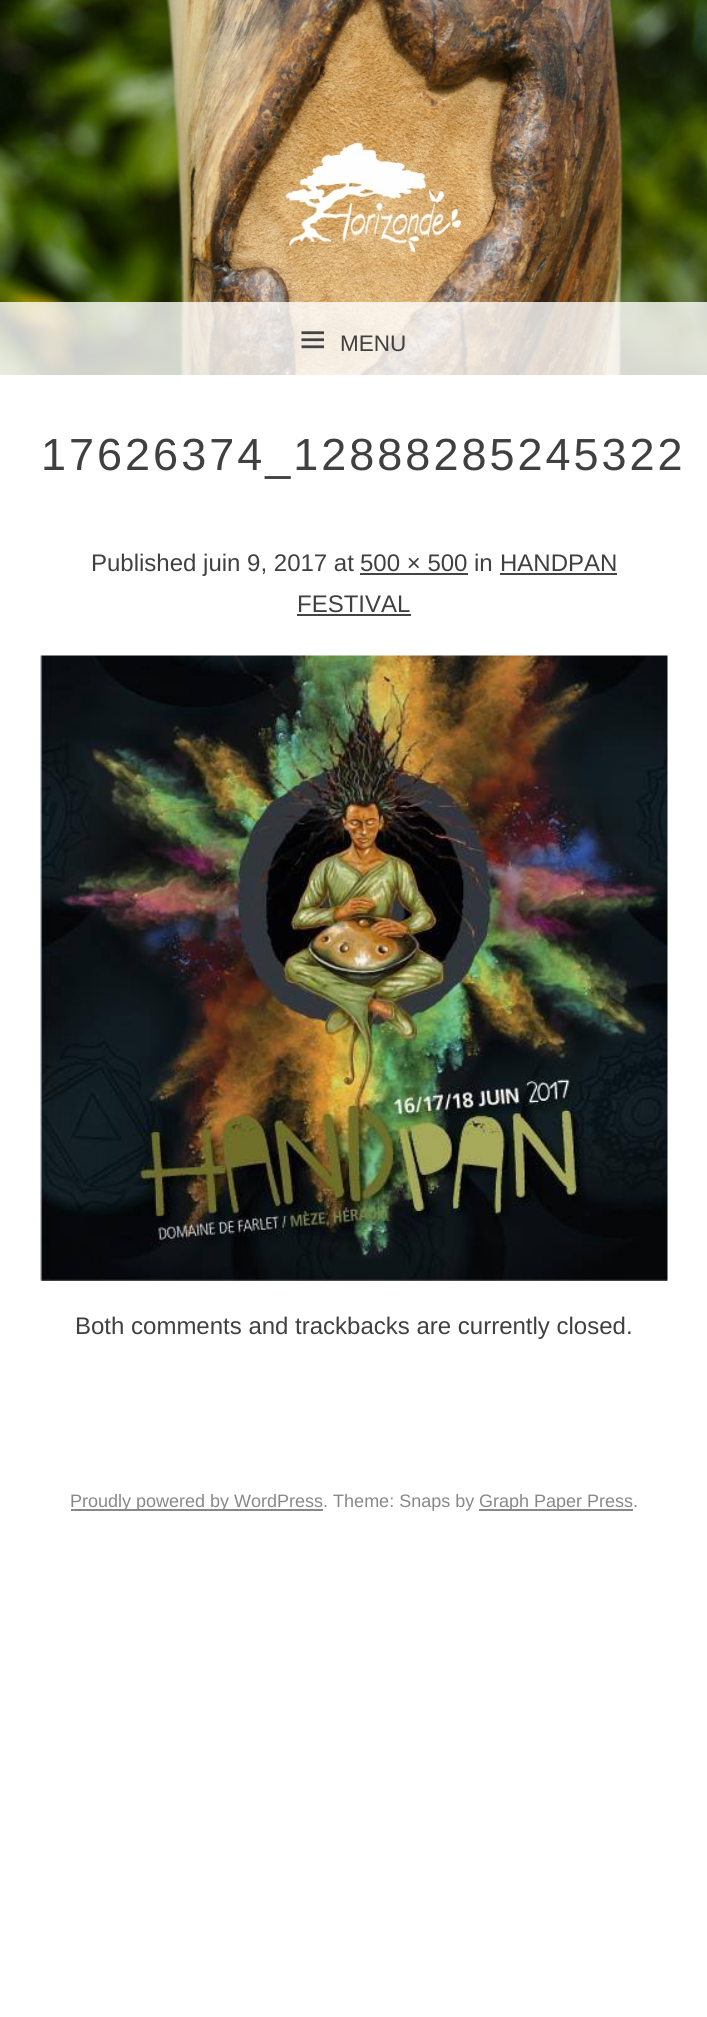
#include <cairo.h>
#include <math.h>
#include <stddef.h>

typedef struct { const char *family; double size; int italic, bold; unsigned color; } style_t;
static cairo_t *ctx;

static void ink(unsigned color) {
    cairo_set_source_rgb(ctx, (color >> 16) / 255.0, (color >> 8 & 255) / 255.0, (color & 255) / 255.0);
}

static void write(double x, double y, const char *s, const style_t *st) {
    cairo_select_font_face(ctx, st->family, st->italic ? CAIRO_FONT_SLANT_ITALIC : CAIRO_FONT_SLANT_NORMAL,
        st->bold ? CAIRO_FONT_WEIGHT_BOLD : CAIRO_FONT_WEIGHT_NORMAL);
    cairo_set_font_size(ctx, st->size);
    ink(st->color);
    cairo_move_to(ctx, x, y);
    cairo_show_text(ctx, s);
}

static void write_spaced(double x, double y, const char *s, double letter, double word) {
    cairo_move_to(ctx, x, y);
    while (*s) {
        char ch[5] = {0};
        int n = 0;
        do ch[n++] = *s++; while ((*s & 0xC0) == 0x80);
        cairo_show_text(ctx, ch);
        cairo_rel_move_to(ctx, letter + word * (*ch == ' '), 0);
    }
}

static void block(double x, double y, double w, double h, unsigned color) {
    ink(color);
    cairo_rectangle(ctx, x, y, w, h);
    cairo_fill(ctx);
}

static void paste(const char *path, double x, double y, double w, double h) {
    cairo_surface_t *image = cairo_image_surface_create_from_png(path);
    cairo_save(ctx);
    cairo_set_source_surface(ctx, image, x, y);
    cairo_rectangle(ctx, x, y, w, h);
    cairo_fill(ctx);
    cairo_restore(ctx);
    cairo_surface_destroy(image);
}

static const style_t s1 = {"Liberation Sans", 22.5, 0, 0, 0x404040};
static const style_t s2 = {"Liberation Sans", 24, 0, 0, 0x404040};
static const style_t s3 = {"Liberation Sans", 18, 0, 0, 0x888888};

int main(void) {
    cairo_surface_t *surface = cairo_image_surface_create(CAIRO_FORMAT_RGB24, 707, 2017);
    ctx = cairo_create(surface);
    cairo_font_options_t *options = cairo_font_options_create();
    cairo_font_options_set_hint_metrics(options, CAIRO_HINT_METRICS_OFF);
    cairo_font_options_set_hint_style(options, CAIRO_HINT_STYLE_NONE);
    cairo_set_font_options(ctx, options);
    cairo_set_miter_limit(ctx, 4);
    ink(0xffffff);
    cairo_paint(ctx);
    paste("pic1.png", 0, 0, 707, 375);
    cairo_set_source_rgba(ctx, 1, 1, 1, 0.8);
    cairo_rectangle(ctx, 0, 302, 707, 73);
    cairo_fill(ctx);
    paste("pic2.png", 301, 331, 23, 18);
    write(340, 351, "MENU", &s1);
    cairo_set_font_size(ctx, 45);
    write_spaced(41, 470, "17626374_12888285245322", 3, 0);
    write(91, 571, "Published juin 9, 2017 at", &s2);
    write(360, 571, "500 × 500", &s2);
    block(360, 573, 108, 2, 0x444444);
    write(474, 571, "in", &s2);
    write(500, 571, "HANDPAN", &s2);
    block(500, 573, 117, 2, 0x444444);
    write(297, 612, "FESTIVAL", &s2);
    block(297, 614, 114, 2, 0x444444);
    paste("pic3.png", 40, 655, 628, 626);
    write(75, 1334, "Both comments and trackbacks are currently closed.", &s2);
    block(71, 1509, 252, 2, 0x888888);
    write(70, 1507, "Proudly powered by WordPress. Theme: Snaps by", &s3);
    block(479, 1509, 154, 2, 0x888888);
    write(479, 1507, "Graph Paper Press.", &s3);
    cairo_surface_write_to_png(surface, "screenshot.png");
    cairo_font_options_destroy(options);
    cairo_destroy(ctx);
    cairo_surface_destroy(surface);
    return 0;
}
